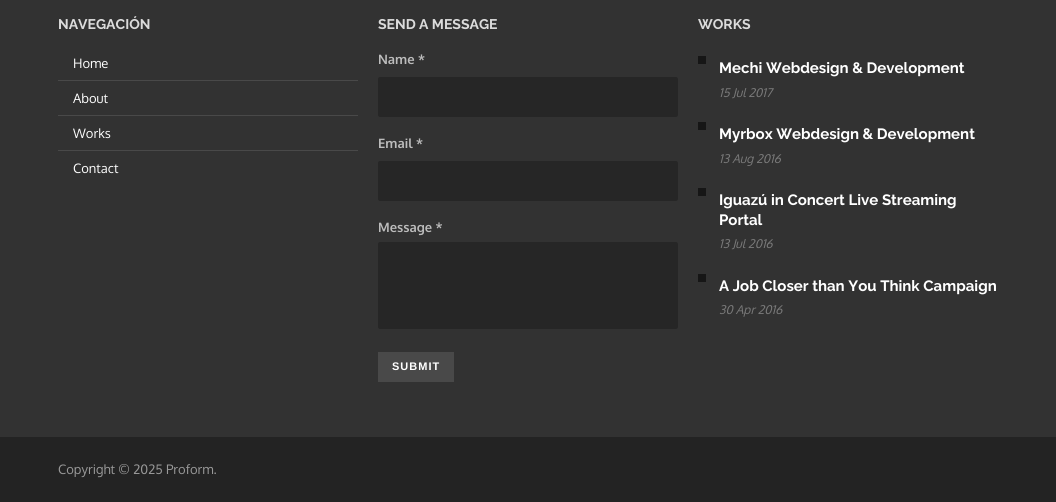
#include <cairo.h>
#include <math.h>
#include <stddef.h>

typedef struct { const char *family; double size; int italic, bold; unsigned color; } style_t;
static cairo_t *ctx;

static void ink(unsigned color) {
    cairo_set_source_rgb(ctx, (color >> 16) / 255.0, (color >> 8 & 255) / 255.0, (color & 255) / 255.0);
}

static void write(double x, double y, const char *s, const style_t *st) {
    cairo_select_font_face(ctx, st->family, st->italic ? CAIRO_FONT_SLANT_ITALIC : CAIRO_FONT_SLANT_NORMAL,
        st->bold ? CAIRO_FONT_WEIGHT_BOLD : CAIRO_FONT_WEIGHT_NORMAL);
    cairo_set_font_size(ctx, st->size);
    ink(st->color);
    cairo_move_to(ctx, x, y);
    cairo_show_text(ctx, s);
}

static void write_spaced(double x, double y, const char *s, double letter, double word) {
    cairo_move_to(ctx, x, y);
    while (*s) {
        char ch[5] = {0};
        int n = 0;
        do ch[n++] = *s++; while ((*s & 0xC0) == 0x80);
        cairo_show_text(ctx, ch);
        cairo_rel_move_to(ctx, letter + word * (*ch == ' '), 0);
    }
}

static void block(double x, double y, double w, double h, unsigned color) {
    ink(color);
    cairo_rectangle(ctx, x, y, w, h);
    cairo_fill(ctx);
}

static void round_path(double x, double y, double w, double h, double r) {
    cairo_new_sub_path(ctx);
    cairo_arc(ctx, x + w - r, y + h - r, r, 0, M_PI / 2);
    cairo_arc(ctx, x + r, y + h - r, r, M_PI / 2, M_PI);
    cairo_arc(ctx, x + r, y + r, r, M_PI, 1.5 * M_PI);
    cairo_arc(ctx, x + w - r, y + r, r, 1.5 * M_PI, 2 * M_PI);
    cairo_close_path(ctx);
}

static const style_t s1 = {"Raleway", 14, 0, 1, 0xdbdbdb};
static const style_t s2 = {"Oxygen", 13, 0, 0, 0xffffff};
static const style_t s3 = {"Oxygen", 13, 0, 1, 0xbcbcbc};
static const style_t s4 = {"Raleway", 15, 0, 1, 0xffffff};
static const style_t s5 = {"Oxygen", 12, 1, 0, 0x7a7a7a};
static const style_t s6 = {"Oxygen", 13, 0, 0, 0x999999};

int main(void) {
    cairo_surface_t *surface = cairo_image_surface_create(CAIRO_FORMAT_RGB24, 1056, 502);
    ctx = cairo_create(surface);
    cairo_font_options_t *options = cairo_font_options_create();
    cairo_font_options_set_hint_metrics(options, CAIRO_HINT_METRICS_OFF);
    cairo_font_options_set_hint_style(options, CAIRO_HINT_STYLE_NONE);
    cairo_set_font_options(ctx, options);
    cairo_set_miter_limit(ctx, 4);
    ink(0x323232);
    cairo_paint(ctx);
    write(58, 29, "NAVEGACIÓN", &s1);
    block(58, 80, 300, 1, 0x494949);
    write(73, 68, "Home", &s2);
    block(58, 115, 300, 1, 0x494949);
    write(73, 103, "About", &s2);
    block(58, 150, 300, 1, 0x494949);
    write(73, 138, "Works", &s2);
    write(73, 173, "Contact", &s2);
    write(378, 29, "SEND A MESSAGE", &s1);
    write(378, 64, "Name *", &s3);
    ink(0x262626);
    round_path(378, 77, 300, 40, 2);
    cairo_fill(ctx);
    write(378, 148, "Email *", &s3);
    ink(0x262626);
    round_path(378, 161, 300, 40, 2);
    cairo_fill(ctx);
    write(378, 232, "Message *", &s3);
    ink(0x262626);
    round_path(378, 242, 300, 87, 2);
    cairo_fill(ctx);
    block(378, 352, 76, 30, 0x494949);
    cairo_select_font_face(ctx, "Liberation Sans", CAIRO_FONT_SLANT_NORMAL, CAIRO_FONT_WEIGHT_BOLD);
    cairo_set_font_size(ctx, 11);
    ink(0xffffff);
    write_spaced(392, 370, "SUBMIT", 1, 0);
    write(698, 29, "WORKS", &s1);
    block(698, 56, 8, 8, 0x161616);
    write(719, 73, "Mechi Webdesign & Development", &s4);
    write(719, 97, "15 Jul 2017", &s5);
    block(698, 122, 8, 8, 0x161616);
    write(719, 139, "Myrbox Webdesign & Development", &s4);
    write(719, 163, "13 Aug 2016", &s5);
    block(698, 188, 8, 8, 0x161616);
    write(719, 205, "Iguazú in Concert Live Streaming", &s4);
    write(719, 225, "Portal", &s4);
    write(719, 248, "13 Jul 2016", &s5);
    block(698, 274, 8, 8, 0x161616);
    write(719, 291, "A Job Closer than You Think Campaign", &s4);
    write(719, 314, "30 Apr 2016", &s5);
    block(0, 437, 1056, 65, 0x232323);
    write(58, 474, "Copyright © 2025 Proform.", &s6);
    cairo_surface_write_to_png(surface, "screenshot.png");
    cairo_font_options_destroy(options);
    cairo_destroy(ctx);
    cairo_surface_destroy(surface);
    return 0;
}
